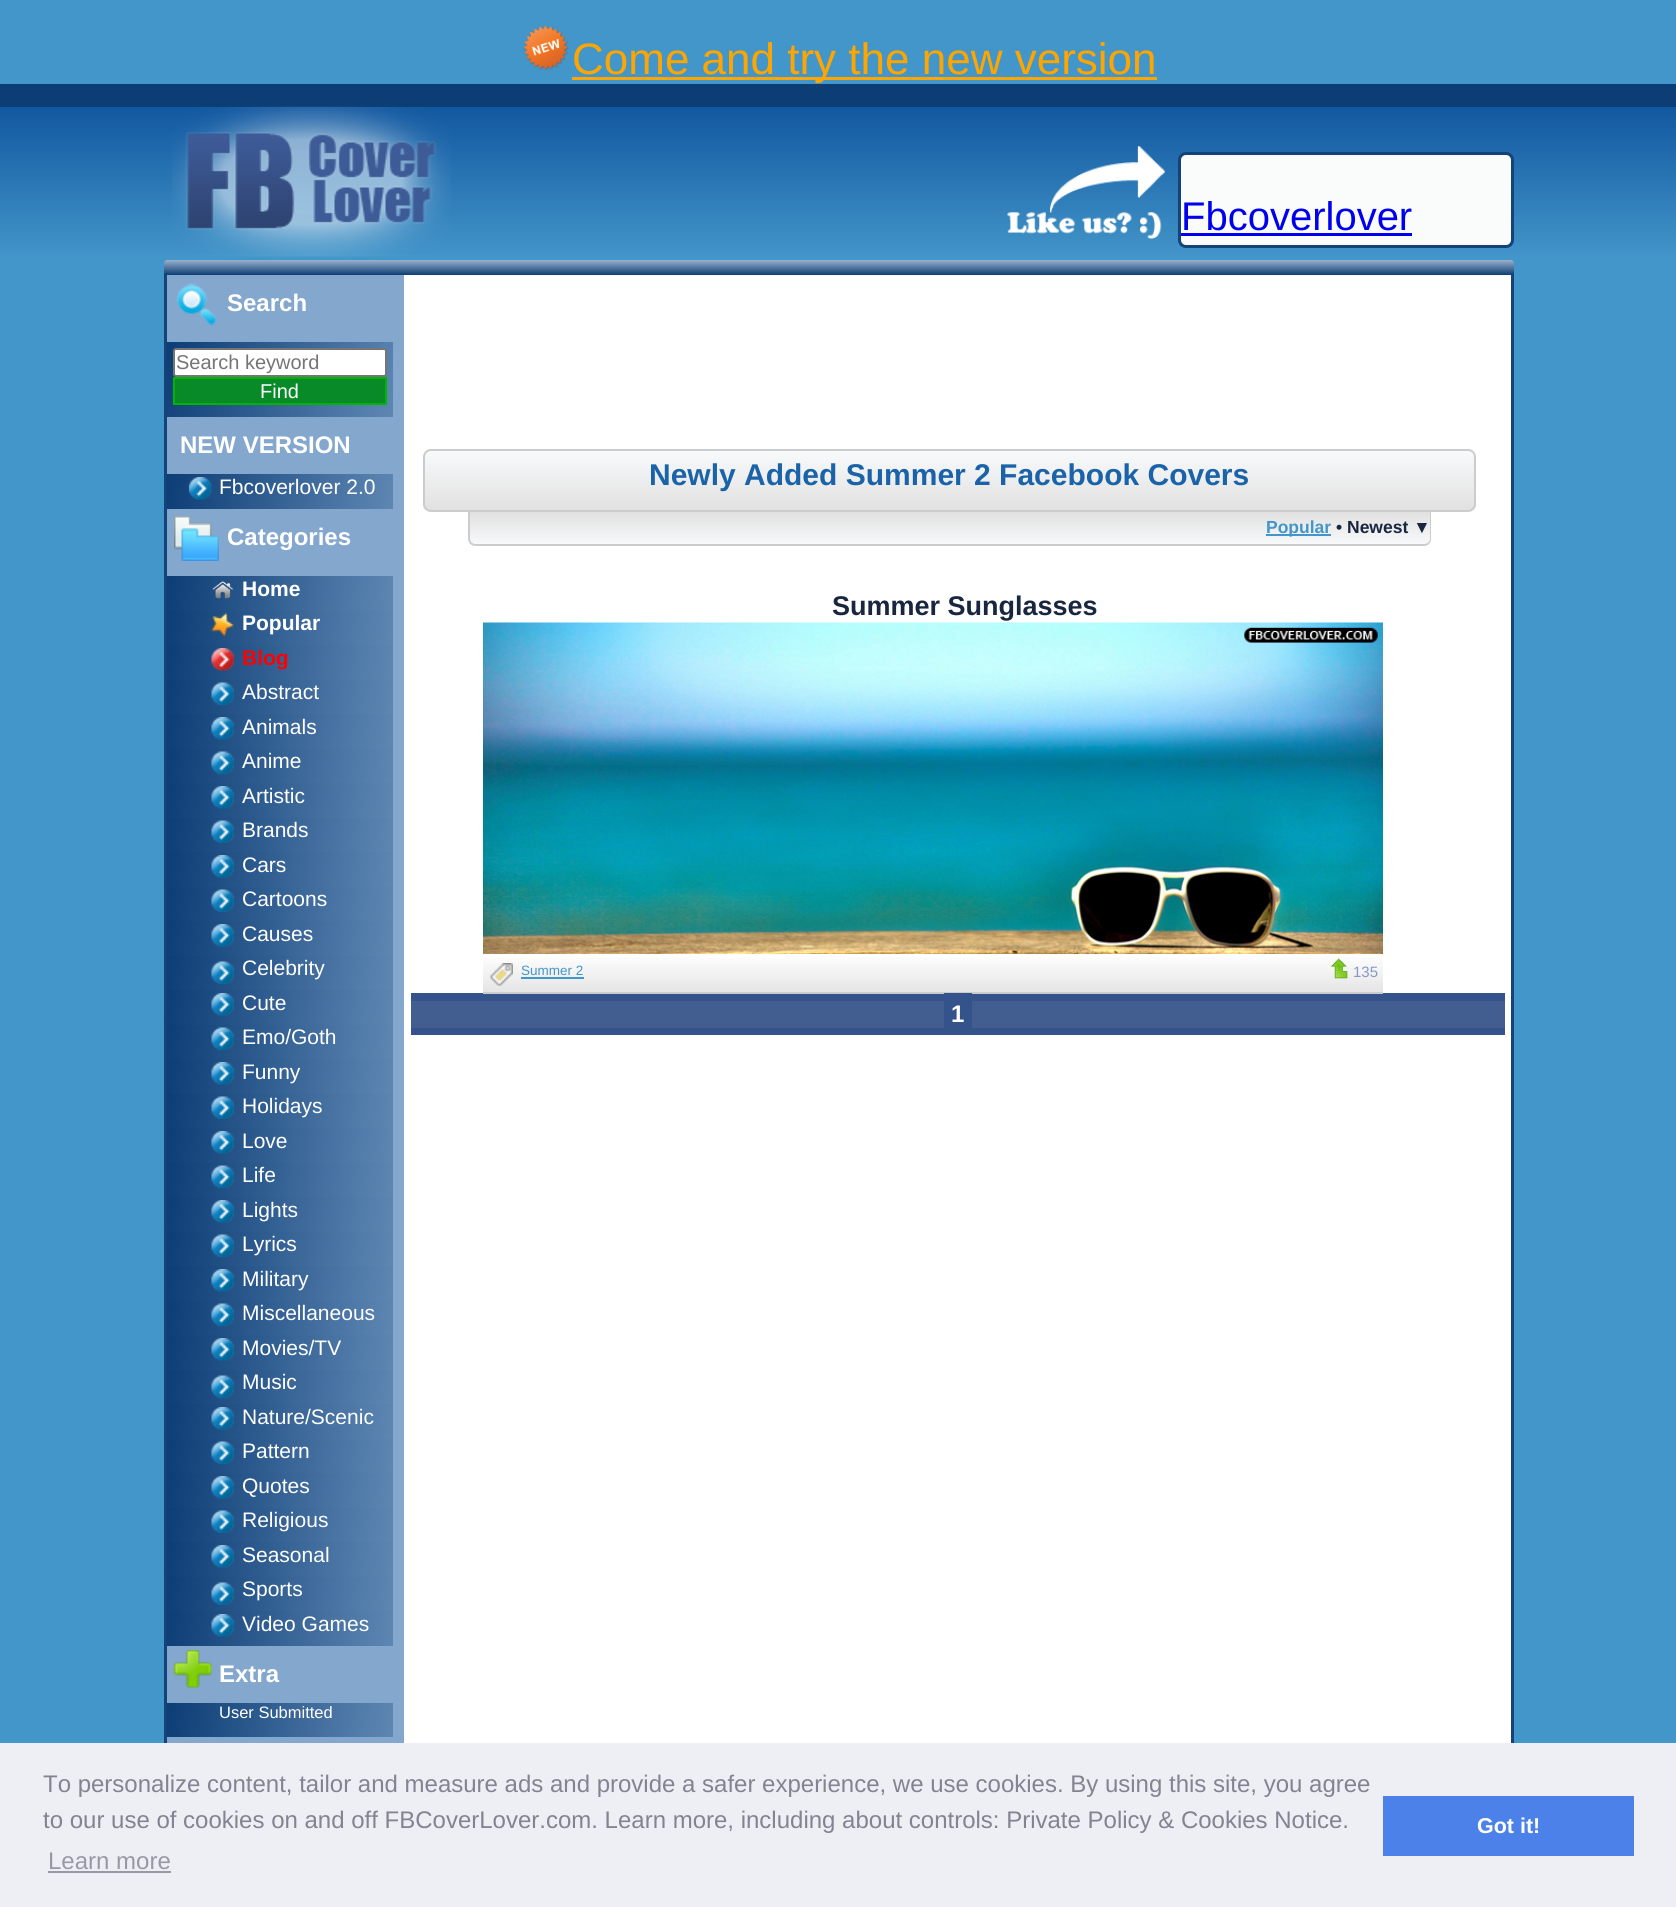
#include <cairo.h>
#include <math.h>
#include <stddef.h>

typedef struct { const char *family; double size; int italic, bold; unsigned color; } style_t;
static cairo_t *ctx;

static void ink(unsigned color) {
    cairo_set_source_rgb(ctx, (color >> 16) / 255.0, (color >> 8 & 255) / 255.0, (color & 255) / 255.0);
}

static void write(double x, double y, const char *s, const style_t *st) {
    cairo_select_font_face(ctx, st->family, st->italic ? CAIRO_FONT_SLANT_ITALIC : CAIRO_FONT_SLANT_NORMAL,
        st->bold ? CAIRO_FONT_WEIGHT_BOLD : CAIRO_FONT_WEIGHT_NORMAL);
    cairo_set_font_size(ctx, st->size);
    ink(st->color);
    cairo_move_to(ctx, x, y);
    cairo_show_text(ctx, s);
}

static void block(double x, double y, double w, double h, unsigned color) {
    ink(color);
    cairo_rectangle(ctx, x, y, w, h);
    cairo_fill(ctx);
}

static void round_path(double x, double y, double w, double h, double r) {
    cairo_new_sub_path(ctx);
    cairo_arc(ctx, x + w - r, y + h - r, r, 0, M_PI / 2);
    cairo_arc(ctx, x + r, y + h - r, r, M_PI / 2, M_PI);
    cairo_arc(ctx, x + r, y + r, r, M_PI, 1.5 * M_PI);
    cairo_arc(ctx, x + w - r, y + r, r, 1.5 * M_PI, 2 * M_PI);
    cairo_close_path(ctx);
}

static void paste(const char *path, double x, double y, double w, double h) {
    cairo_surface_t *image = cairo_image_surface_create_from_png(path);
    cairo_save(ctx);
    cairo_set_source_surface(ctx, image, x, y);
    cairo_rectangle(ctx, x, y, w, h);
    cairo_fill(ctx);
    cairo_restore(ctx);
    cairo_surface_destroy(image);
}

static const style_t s1 = {"Liberation Sans", 44, 0, 0, 0xffa500};
static const style_t s2 = {"Liberation Sans", 40, 0, 0, 0x0000ee};
static const style_t s3 = {"Liberation Sans", 24, 0, 1, 0xffffff};
static const style_t s4 = {"Liberation Sans", 20, 0, 0, 0x757575};
static const style_t s5 = {"Liberation Sans", 20, 0, 0, 0xffffff};
static const style_t s6 = {"Liberation Sans", 21, 0, 0, 0xffffff};
static const style_t s7 = {"Liberation Sans", 21, 0, 1, 0xffffff};
static const style_t s8 = {"Liberation Sans", 21, 0, 1, 0xfe0000};
static const style_t s9 = {"Liberation Sans", 16.5, 0, 0, 0xffffff};
static const style_t s10 = {"Liberation Sans", 30, 0, 1, 0x1b63a8};
static const style_t s11 = {"Liberation Sans", 17.5, 0, 1, 0x4396ca};
static const style_t s12 = {"Liberation Sans", 17.5, 0, 1, 0x19263f};
static const style_t s13 = {"Liberation Sans", 27, 0, 1, 0x19263f};
static const style_t s14 = {"Liberation Sans", 13.5, 0, 0, 0x4396ca};
static const style_t s15 = {"Liberation Sans", 15, 0, 0, 0x8897c6};
static const style_t s16 = {"Liberation Sans", 24, 0, 0, 0x838391};
static const style_t s17 = {"Liberation Sans", 24, 0, 0, 0x9899a5};
static const style_t s18 = {"Liberation Sans", 21.5, 0, 1, 0xffffff};

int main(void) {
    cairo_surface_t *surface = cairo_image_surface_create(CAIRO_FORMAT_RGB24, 1676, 1907);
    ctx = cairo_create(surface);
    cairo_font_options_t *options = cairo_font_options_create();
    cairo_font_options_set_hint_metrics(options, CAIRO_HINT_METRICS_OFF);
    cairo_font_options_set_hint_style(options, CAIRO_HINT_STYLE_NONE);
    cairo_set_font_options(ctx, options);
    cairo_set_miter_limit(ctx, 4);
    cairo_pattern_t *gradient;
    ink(0x4396ca);
    cairo_paint(ctx);
    paste("pic1.png", 523, 25, 46, 46);
    block(572, 77, 585, 3, 0xffa500);
    write(572, 74, "Come and try the new version", &s1);
    block(0, 84, 1676, 23, 0x0c3d75);
    gradient = cairo_pattern_create_linear(0, 107, 0, 260);
    cairo_pattern_add_color_stop_rgba(gradient, 0, 0.071, 0.345, 0.627, 1);
    cairo_pattern_add_color_stop_rgba(gradient, 1, 0.263, 0.588, 0.792, 1);
    cairo_set_source(ctx, gradient);
    cairo_pattern_destroy(gradient);
    cairo_rectangle(ctx, 0, 107, 1676, 147);
    cairo_fill(ctx);
    paste("pic2.png", 172, 106, 279, 151);
    paste("pic3.png", 1007, 146, 158, 93);
    ink(0xfafbfb);
    round_path(1179.5, 153.5, 333, 93, 6.5);
    cairo_fill_preserve(ctx);
    ink(0x134379);
    cairo_set_line_width(ctx, 3);
    cairo_stroke(ctx);
    write(1181, 230, "Fbcoverlover", &s2);
    block(1181, 233, 231, 3, 0x0000ee);
    gradient = cairo_pattern_create_linear(164, 275, 164, 260);
    cairo_pattern_add_color_stop_rgba(gradient, 0, 0.047, 0.239, 0.459, 1);
    cairo_pattern_add_color_stop_rgba(gradient, 1, 0.604, 0.698, 0.804, 1);
    cairo_set_source(ctx, gradient);
    cairo_pattern_destroy(gradient);
    cairo_new_path(ctx);
    cairo_move_to(ctx, 167, 260);
    cairo_line_to(ctx, 1511, 260);
    cairo_curve_to(ctx, 1512.5, 260, 1514, 261.5, 1514, 263);
    cairo_line_to(ctx, 1514, 275);
    cairo_line_to(ctx, 164, 275);
    cairo_line_to(ctx, 164, 263);
    cairo_curve_to(ctx, 164, 261.5, 165.5, 260, 167, 260);
    cairo_close_path(ctx);
    cairo_fill(ctx);
    block(404, 275, 1107, 1468, 0xffffff);
    block(1511, 275, 3, 1468, 0x134379);
    block(164, 275, 3, 1468, 0x134379);
    block(167, 275, 237, 301, 0x84a7ce);
    paste("pic4.png", 176, 283, 41, 43);
    write(227, 311, "Search", &s3);
    gradient = cairo_pattern_create_linear(167, 342, 404, 417);
    cairo_pattern_add_color_stop_rgba(gradient, 0, 0.047, 0.239, 0.459, 1);
    cairo_pattern_add_color_stop_rgba(gradient, 1, 0.384, 0.541, 0.714, 1);
    cairo_set_source(ctx, gradient);
    cairo_pattern_destroy(gradient);
    cairo_rectangle(ctx, 167, 342, 226, 75);
    cairo_fill(ctx);
    ink(0xffffff);
    round_path(174, 349, 212, 27, 2);
    cairo_fill_preserve(ctx);
    ink(0x767676);
    cairo_set_line_width(ctx, 2);
    cairo_stroke(ctx);
    write(176, 369, "Search keyword", &s4);
    ink(0x088a29);
    cairo_rectangle(ctx, 174, 378, 212, 26);
    cairo_fill_preserve(ctx);
    ink(0x04b404);
    cairo_stroke(ctx);
    write(260, 398, "Find", &s5);
    write(180, 453, "NEW VERSION", &s3);
    gradient = cairo_pattern_create_linear(167, 474, 404, 509);
    cairo_pattern_add_color_stop_rgba(gradient, 0, 0.047, 0.239, 0.459, 1);
    cairo_pattern_add_color_stop_rgba(gradient, 1, 0.384, 0.541, 0.714, 1);
    cairo_set_source(ctx, gradient);
    cairo_pattern_destroy(gradient);
    cairo_rectangle(ctx, 167, 474, 226, 35);
    cairo_fill(ctx);
    paste("pic5.png", 189, 477, 23, 23);
    write(219, 494, "Fbcoverlover 2.0", &s6);
    paste("pic6.png", 174, 516, 45, 45);
    write(227, 545, "Categories", &s3);
    gradient = cairo_pattern_create_linear(167, 576, 404, 611);
    cairo_pattern_add_color_stop_rgba(gradient, 0, 0.047, 0.239, 0.459, 1);
    cairo_pattern_add_color_stop_rgba(gradient, 1, 0.384, 0.541, 0.714, 1);
    cairo_set_source(ctx, gradient);
    cairo_pattern_destroy(gradient);
    cairo_rectangle(ctx, 167, 576, 226, 35);
    cairo_fill(ctx);
    paste("pic7.png", 212, 581, 22, 18);
    write(242, 596, "Home", &s7);
    block(393, 576, 11, 1070, 0x84a7ce);
    gradient = cairo_pattern_create_linear(167, 611, 404, 645);
    cairo_pattern_add_color_stop_rgba(gradient, 0, 0.047, 0.239, 0.459, 1);
    cairo_pattern_add_color_stop_rgba(gradient, 1, 0.384, 0.541, 0.714, 1);
    cairo_set_source(ctx, gradient);
    cairo_pattern_destroy(gradient);
    cairo_rectangle(ctx, 167, 611, 226, 34);
    cairo_fill(ctx);
    paste("pic8.png", 211, 613, 23, 23);
    write(242, 630, "Popular", &s7);
    gradient = cairo_pattern_create_linear(167, 645, 404, 680);
    cairo_pattern_add_color_stop_rgba(gradient, 0, 0.047, 0.239, 0.459, 1);
    cairo_pattern_add_color_stop_rgba(gradient, 1, 0.384, 0.541, 0.714, 1);
    cairo_set_source(ctx, gradient);
    cairo_pattern_destroy(gradient);
    cairo_rectangle(ctx, 167, 645, 226, 35);
    cairo_fill(ctx);
    paste("pic9.png", 211, 648, 23, 23);
    write(242, 665, "Blog", &s8);
    gradient = cairo_pattern_create_linear(167, 680, 404, 714);
    cairo_pattern_add_color_stop_rgba(gradient, 0, 0.047, 0.239, 0.459, 1);
    cairo_pattern_add_color_stop_rgba(gradient, 1, 0.384, 0.541, 0.714, 1);
    cairo_set_source(ctx, gradient);
    cairo_pattern_destroy(gradient);
    cairo_rectangle(ctx, 167, 680, 226, 34);
    cairo_fill(ctx);
    paste("pic10.png", 211, 682, 23, 23);
    write(242, 699, "Abstract", &s6);
    gradient = cairo_pattern_create_linear(167, 714, 404, 749);
    cairo_pattern_add_color_stop_rgba(gradient, 0, 0.047, 0.239, 0.459, 1);
    cairo_pattern_add_color_stop_rgba(gradient, 1, 0.384, 0.541, 0.714, 1);
    cairo_set_source(ctx, gradient);
    cairo_pattern_destroy(gradient);
    cairo_rectangle(ctx, 167, 714, 226, 35);
    cairo_fill(ctx);
    paste("pic11.png", 211, 717, 23, 23);
    write(242, 734, "Animals", &s6);
    gradient = cairo_pattern_create_linear(167, 749, 404, 783);
    cairo_pattern_add_color_stop_rgba(gradient, 0, 0.047, 0.239, 0.459, 1);
    cairo_pattern_add_color_stop_rgba(gradient, 1, 0.384, 0.541, 0.714, 1);
    cairo_set_source(ctx, gradient);
    cairo_pattern_destroy(gradient);
    cairo_rectangle(ctx, 167, 749, 226, 34);
    cairo_fill(ctx);
    paste("pic10.png", 211, 751, 23, 23);
    write(242, 768, "Anime", &s6);
    gradient = cairo_pattern_create_linear(167, 783, 404, 818);
    cairo_pattern_add_color_stop_rgba(gradient, 0, 0.047, 0.239, 0.459, 1);
    cairo_pattern_add_color_stop_rgba(gradient, 1, 0.384, 0.541, 0.714, 1);
    cairo_set_source(ctx, gradient);
    cairo_pattern_destroy(gradient);
    cairo_rectangle(ctx, 167, 783, 226, 35);
    cairo_fill(ctx);
    paste("pic11.png", 211, 786, 23, 23);
    write(242, 803, "Artistic", &s6);
    gradient = cairo_pattern_create_linear(167, 818, 404, 852);
    cairo_pattern_add_color_stop_rgba(gradient, 0, 0.047, 0.239, 0.459, 1);
    cairo_pattern_add_color_stop_rgba(gradient, 1, 0.384, 0.541, 0.714, 1);
    cairo_set_source(ctx, gradient);
    cairo_pattern_destroy(gradient);
    cairo_rectangle(ctx, 167, 818, 226, 34);
    cairo_fill(ctx);
    paste("pic10.png", 211, 820, 23, 23);
    write(242, 837, "Brands", &s6);
    gradient = cairo_pattern_create_linear(167, 852, 404, 887);
    cairo_pattern_add_color_stop_rgba(gradient, 0, 0.047, 0.239, 0.459, 1);
    cairo_pattern_add_color_stop_rgba(gradient, 1, 0.384, 0.541, 0.714, 1);
    cairo_set_source(ctx, gradient);
    cairo_pattern_destroy(gradient);
    cairo_rectangle(ctx, 167, 852, 226, 35);
    cairo_fill(ctx);
    paste("pic11.png", 211, 855, 23, 23);
    write(242, 872, "Cars", &s6);
    gradient = cairo_pattern_create_linear(167, 887, 404, 921);
    cairo_pattern_add_color_stop_rgba(gradient, 0, 0.047, 0.239, 0.459, 1);
    cairo_pattern_add_color_stop_rgba(gradient, 1, 0.384, 0.541, 0.714, 1);
    cairo_set_source(ctx, gradient);
    cairo_pattern_destroy(gradient);
    cairo_rectangle(ctx, 167, 887, 226, 34);
    cairo_fill(ctx);
    paste("pic10.png", 211, 889, 23, 23);
    write(242, 906, "Cartoons", &s6);
    gradient = cairo_pattern_create_linear(167, 921, 404, 956);
    cairo_pattern_add_color_stop_rgba(gradient, 0, 0.047, 0.239, 0.459, 1);
    cairo_pattern_add_color_stop_rgba(gradient, 1, 0.384, 0.541, 0.714, 1);
    cairo_set_source(ctx, gradient);
    cairo_pattern_destroy(gradient);
    cairo_rectangle(ctx, 167, 921, 226, 35);
    cairo_fill(ctx);
    paste("pic11.png", 211, 924, 23, 23);
    write(242, 941, "Causes", &s6);
    gradient = cairo_pattern_create_linear(167, 956, 404, 990);
    cairo_pattern_add_color_stop_rgba(gradient, 0, 0.047, 0.239, 0.459, 1);
    cairo_pattern_add_color_stop_rgba(gradient, 1, 0.384, 0.541, 0.714, 1);
    cairo_set_source(ctx, gradient);
    cairo_pattern_destroy(gradient);
    cairo_rectangle(ctx, 167, 956, 226, 34);
    cairo_fill(ctx);
    paste("pic12.png", 211, 961, 23, 23);
    write(242, 975, "Celebrity", &s6);
    gradient = cairo_pattern_create_linear(167, 990, 404, 1025);
    cairo_pattern_add_color_stop_rgba(gradient, 0, 0.047, 0.239, 0.459, 1);
    cairo_pattern_add_color_stop_rgba(gradient, 1, 0.384, 0.541, 0.714, 1);
    cairo_set_source(ctx, gradient);
    cairo_pattern_destroy(gradient);
    cairo_rectangle(ctx, 167, 990, 226, 35);
    cairo_fill(ctx);
    paste("pic11.png", 211, 993, 23, 23);
    write(242, 1010, "Cute", &s6);
    gradient = cairo_pattern_create_linear(167, 1025, 404, 1059);
    cairo_pattern_add_color_stop_rgba(gradient, 0, 0.047, 0.239, 0.459, 1);
    cairo_pattern_add_color_stop_rgba(gradient, 1, 0.384, 0.541, 0.714, 1);
    cairo_set_source(ctx, gradient);
    cairo_pattern_destroy(gradient);
    cairo_rectangle(ctx, 167, 1025, 226, 34);
    cairo_fill(ctx);
    paste("pic10.png", 211, 1027, 23, 23);
    write(242, 1044, "Emo/Goth", &s6);
    gradient = cairo_pattern_create_linear(167, 1059, 404, 1094);
    cairo_pattern_add_color_stop_rgba(gradient, 0, 0.047, 0.239, 0.459, 1);
    cairo_pattern_add_color_stop_rgba(gradient, 1, 0.384, 0.541, 0.714, 1);
    cairo_set_source(ctx, gradient);
    cairo_pattern_destroy(gradient);
    cairo_rectangle(ctx, 167, 1059, 226, 35);
    cairo_fill(ctx);
    paste("pic11.png", 211, 1062, 23, 23);
    write(242, 1079, "Funny", &s6);
    gradient = cairo_pattern_create_linear(167, 1094, 404, 1128);
    cairo_pattern_add_color_stop_rgba(gradient, 0, 0.047, 0.239, 0.459, 1);
    cairo_pattern_add_color_stop_rgba(gradient, 1, 0.384, 0.541, 0.714, 1);
    cairo_set_source(ctx, gradient);
    cairo_pattern_destroy(gradient);
    cairo_rectangle(ctx, 167, 1094, 226, 34);
    cairo_fill(ctx);
    paste("pic10.png", 211, 1096, 23, 23);
    write(242, 1113, "Holidays", &s6);
    gradient = cairo_pattern_create_linear(167, 1128, 404, 1163);
    cairo_pattern_add_color_stop_rgba(gradient, 0, 0.047, 0.239, 0.459, 1);
    cairo_pattern_add_color_stop_rgba(gradient, 1, 0.384, 0.541, 0.714, 1);
    cairo_set_source(ctx, gradient);
    cairo_pattern_destroy(gradient);
    cairo_rectangle(ctx, 167, 1128, 226, 35);
    cairo_fill(ctx);
    paste("pic11.png", 211, 1131, 23, 23);
    write(242, 1148, "Love", &s6);
    gradient = cairo_pattern_create_linear(167, 1163, 404, 1197);
    cairo_pattern_add_color_stop_rgba(gradient, 0, 0.047, 0.239, 0.459, 1);
    cairo_pattern_add_color_stop_rgba(gradient, 1, 0.384, 0.541, 0.714, 1);
    cairo_set_source(ctx, gradient);
    cairo_pattern_destroy(gradient);
    cairo_rectangle(ctx, 167, 1163, 226, 34);
    cairo_fill(ctx);
    paste("pic10.png", 211, 1165, 23, 23);
    write(242, 1182, "Life", &s6);
    gradient = cairo_pattern_create_linear(167, 1197, 404, 1232);
    cairo_pattern_add_color_stop_rgba(gradient, 0, 0.047, 0.239, 0.459, 1);
    cairo_pattern_add_color_stop_rgba(gradient, 1, 0.384, 0.541, 0.714, 1);
    cairo_set_source(ctx, gradient);
    cairo_pattern_destroy(gradient);
    cairo_rectangle(ctx, 167, 1197, 226, 35);
    cairo_fill(ctx);
    paste("pic11.png", 211, 1200, 23, 23);
    write(242, 1217, "Lights", &s6);
    gradient = cairo_pattern_create_linear(167, 1232, 404, 1266);
    cairo_pattern_add_color_stop_rgba(gradient, 0, 0.047, 0.239, 0.459, 1);
    cairo_pattern_add_color_stop_rgba(gradient, 1, 0.384, 0.541, 0.714, 1);
    cairo_set_source(ctx, gradient);
    cairo_pattern_destroy(gradient);
    cairo_rectangle(ctx, 167, 1232, 226, 34);
    cairo_fill(ctx);
    paste("pic10.png", 211, 1234, 23, 23);
    write(242, 1251, "Lyrics", &s6);
    gradient = cairo_pattern_create_linear(167, 1266, 404, 1301);
    cairo_pattern_add_color_stop_rgba(gradient, 0, 0.047, 0.239, 0.459, 1);
    cairo_pattern_add_color_stop_rgba(gradient, 1, 0.384, 0.541, 0.714, 1);
    cairo_set_source(ctx, gradient);
    cairo_pattern_destroy(gradient);
    cairo_rectangle(ctx, 167, 1266, 226, 35);
    cairo_fill(ctx);
    paste("pic11.png", 211, 1269, 23, 23);
    write(242, 1286, "Military", &s6);
    gradient = cairo_pattern_create_linear(167, 1301, 404, 1335);
    cairo_pattern_add_color_stop_rgba(gradient, 0, 0.047, 0.239, 0.459, 1);
    cairo_pattern_add_color_stop_rgba(gradient, 1, 0.384, 0.541, 0.714, 1);
    cairo_set_source(ctx, gradient);
    cairo_pattern_destroy(gradient);
    cairo_rectangle(ctx, 167, 1301, 226, 34);
    cairo_fill(ctx);
    paste("pic10.png", 211, 1303, 23, 23);
    write(242, 1320, "Miscellaneous", &s6);
    gradient = cairo_pattern_create_linear(167, 1335, 404, 1370);
    cairo_pattern_add_color_stop_rgba(gradient, 0, 0.047, 0.239, 0.459, 1);
    cairo_pattern_add_color_stop_rgba(gradient, 1, 0.384, 0.541, 0.714, 1);
    cairo_set_source(ctx, gradient);
    cairo_pattern_destroy(gradient);
    cairo_rectangle(ctx, 167, 1335, 226, 35);
    cairo_fill(ctx);
    paste("pic11.png", 211, 1338, 23, 23);
    write(242, 1355, "Movies/TV", &s6);
    gradient = cairo_pattern_create_linear(167, 1370, 404, 1404);
    cairo_pattern_add_color_stop_rgba(gradient, 0, 0.047, 0.239, 0.459, 1);
    cairo_pattern_add_color_stop_rgba(gradient, 1, 0.384, 0.541, 0.714, 1);
    cairo_set_source(ctx, gradient);
    cairo_pattern_destroy(gradient);
    cairo_rectangle(ctx, 167, 1370, 226, 34);
    cairo_fill(ctx);
    paste("pic12.png", 211, 1375, 23, 23);
    write(242, 1389, "Music", &s6);
    gradient = cairo_pattern_create_linear(167, 1404, 404, 1439);
    cairo_pattern_add_color_stop_rgba(gradient, 0, 0.047, 0.239, 0.459, 1);
    cairo_pattern_add_color_stop_rgba(gradient, 1, 0.384, 0.541, 0.714, 1);
    cairo_set_source(ctx, gradient);
    cairo_pattern_destroy(gradient);
    cairo_rectangle(ctx, 167, 1404, 226, 35);
    cairo_fill(ctx);
    paste("pic11.png", 211, 1407, 23, 23);
    write(242, 1424, "Nature/Scenic", &s6);
    gradient = cairo_pattern_create_linear(167, 1439, 404, 1473);
    cairo_pattern_add_color_stop_rgba(gradient, 0, 0.047, 0.239, 0.459, 1);
    cairo_pattern_add_color_stop_rgba(gradient, 1, 0.384, 0.541, 0.714, 1);
    cairo_set_source(ctx, gradient);
    cairo_pattern_destroy(gradient);
    cairo_rectangle(ctx, 167, 1439, 226, 34);
    cairo_fill(ctx);
    paste("pic10.png", 211, 1441, 23, 23);
    write(242, 1458, "Pattern", &s6);
    gradient = cairo_pattern_create_linear(167, 1473, 404, 1508);
    cairo_pattern_add_color_stop_rgba(gradient, 0, 0.047, 0.239, 0.459, 1);
    cairo_pattern_add_color_stop_rgba(gradient, 1, 0.384, 0.541, 0.714, 1);
    cairo_set_source(ctx, gradient);
    cairo_pattern_destroy(gradient);
    cairo_rectangle(ctx, 167, 1473, 226, 35);
    cairo_fill(ctx);
    paste("pic11.png", 211, 1476, 23, 23);
    write(242, 1493, "Quotes", &s6);
    gradient = cairo_pattern_create_linear(167, 1508, 404, 1542);
    cairo_pattern_add_color_stop_rgba(gradient, 0, 0.047, 0.239, 0.459, 1);
    cairo_pattern_add_color_stop_rgba(gradient, 1, 0.384, 0.541, 0.714, 1);
    cairo_set_source(ctx, gradient);
    cairo_pattern_destroy(gradient);
    cairo_rectangle(ctx, 167, 1508, 226, 34);
    cairo_fill(ctx);
    paste("pic10.png", 211, 1510, 23, 23);
    write(242, 1527, "Religious", &s6);
    gradient = cairo_pattern_create_linear(167, 1542, 404, 1577);
    cairo_pattern_add_color_stop_rgba(gradient, 0, 0.047, 0.239, 0.459, 1);
    cairo_pattern_add_color_stop_rgba(gradient, 1, 0.384, 0.541, 0.714, 1);
    cairo_set_source(ctx, gradient);
    cairo_pattern_destroy(gradient);
    cairo_rectangle(ctx, 167, 1542, 226, 35);
    cairo_fill(ctx);
    paste("pic11.png", 211, 1545, 23, 23);
    write(242, 1562, "Seasonal", &s6);
    gradient = cairo_pattern_create_linear(167, 1577, 404, 1611);
    cairo_pattern_add_color_stop_rgba(gradient, 0, 0.047, 0.239, 0.459, 1);
    cairo_pattern_add_color_stop_rgba(gradient, 1, 0.384, 0.541, 0.714, 1);
    cairo_set_source(ctx, gradient);
    cairo_pattern_destroy(gradient);
    cairo_rectangle(ctx, 167, 1577, 226, 34);
    cairo_fill(ctx);
    paste("pic12.png", 211, 1582, 23, 23);
    write(242, 1596, "Sports", &s6);
    gradient = cairo_pattern_create_linear(167, 1611, 404, 1646);
    cairo_pattern_add_color_stop_rgba(gradient, 0, 0.047, 0.239, 0.459, 1);
    cairo_pattern_add_color_stop_rgba(gradient, 1, 0.384, 0.541, 0.714, 1);
    cairo_set_source(ctx, gradient);
    cairo_pattern_destroy(gradient);
    cairo_rectangle(ctx, 167, 1611, 226, 35);
    cairo_fill(ctx);
    paste("pic11.png", 211, 1614, 23, 23);
    write(242, 1631, "Video Games", &s6);
    block(167, 1646, 237, 57, 0x84a7ce);
    paste("pic13.png", 174, 1650, 38, 38);
    write(219, 1682, "Extra", &s3);
    gradient = cairo_pattern_create_linear(167, 1703, 404, 1737);
    cairo_pattern_add_color_stop_rgba(gradient, 0, 0.047, 0.239, 0.459, 1);
    cairo_pattern_add_color_stop_rgba(gradient, 1, 0.384, 0.541, 0.714, 1);
    cairo_set_source(ctx, gradient);
    cairo_pattern_destroy(gradient);
    cairo_rectangle(ctx, 167, 1703, 226, 34);
    cairo_fill(ctx);
    write(219, 1718, "User Submitted", &s9);
    block(393, 1703, 11, 34, 0x84a7ce);
    block(167, 1737, 237, 6, 0x84a7ce);
    cairo_save(ctx);
    round_path(423, 449, 1053, 63, 8);
    cairo_clip(ctx);
    gradient = cairo_pattern_create_linear(425, 450, 425, 510);
    cairo_pattern_add_color_stop_rgba(gradient, 0, 0.976, 0.98, 0.988, 1);
    cairo_pattern_add_color_stop_rgba(gradient, 1, 0.882, 0.882, 0.882, 1);
    cairo_set_source(ctx, gradient);
    cairo_pattern_destroy(gradient);
    cairo_rectangle(ctx, 423, 450, 1053, 60);
    cairo_fill(ctx);
    cairo_restore(ctx);
    round_path(424, 450, 1051, 61, 7);
    ink(0xcccccc);
    cairo_stroke(ctx);
    write(649, 485, "Newly Added Summer 2 Facebook Covers", &s10);
    cairo_save(ctx);
    cairo_new_path(ctx);
    cairo_move_to(ctx, 468, 512);
    cairo_line_to(ctx, 1431, 512);
    cairo_line_to(ctx, 1431, 538);
    cairo_curve_to(ctx, 1431, 542.5, 1427.5, 546, 1423, 546);
    cairo_line_to(ctx, 476, 546);
    cairo_curve_to(ctx, 471.5, 546, 468, 542.5, 468, 538);
    cairo_close_path(ctx);
    cairo_clip(ctx);
    gradient = cairo_pattern_create_linear(470, 512, 470, 545);
    cairo_pattern_add_color_stop_rgba(gradient, 0, 0.882, 0.882, 0.882, 1);
    cairo_pattern_add_color_stop_rgba(gradient, 1, 0.976, 0.98, 0.988, 1);
    cairo_set_source(ctx, gradient);
    cairo_pattern_destroy(gradient);
    cairo_rectangle(ctx, 468, 512, 963, 33);
    cairo_fill(ctx);
    cairo_restore(ctx);
    ink(0xcccccc);
    cairo_set_fill_rule(ctx, CAIRO_FILL_RULE_EVEN_ODD);
    cairo_new_path(ctx);
    cairo_move_to(ctx, 468, 512);
    cairo_line_to(ctx, 1431, 512);
    cairo_line_to(ctx, 1431, 538);
    cairo_curve_to(ctx, 1431, 543, 1428, 546, 1424, 546);
    cairo_line_to(ctx, 476, 546);
    cairo_curve_to(ctx, 471, 546, 468, 543, 468, 538);
    cairo_close_path(ctx);
    cairo_move_to(ctx, 470, 512);
    cairo_line_to(ctx, 1430, 512);
    cairo_line_to(ctx, 1430, 538);
    cairo_curve_to(ctx, 1430, 542, 1427, 544, 1424, 544);
    cairo_line_to(ctx, 476, 544);
    cairo_curve_to(ctx, 472, 544, 470, 542, 470, 538);
    cairo_close_path(ctx);
    cairo_fill(ctx);
    block(1266, 534, 65, 2, 0x4396ca);
    write(1266, 533, "Popular", &s11);
    write(1336, 533, "• Newest ▼", &s12);
    write(832, 615, "Summer Sunglasses", &s13);
    paste("pic14.png", 483, 622, 900, 332);
    gradient = cairo_pattern_create_linear(483, 954, 483, 992);
    cairo_pattern_add_color_stop_rgba(gradient, 0, 1, 1, 1, 1);
    cairo_pattern_add_color_stop_rgba(gradient, 1, 0.898, 0.898, 0.898, 1);
    cairo_set_source(ctx, gradient);
    cairo_pattern_destroy(gradient);
    cairo_rectangle(ctx, 483, 958, 900, 34);
    cairo_fill(ctx);
    block(411, 993, 1094, 42, 0x34538a);
    block(483, 992, 900, 2, 0xcccccc);
    paste("pic15.png", 490, 963, 23, 23);
    write(521, 975, "Summer 2", &s14);
    block(521, 977, 63, 2, 0x4396ca);
    paste("pic16.png", 1331, 958, 17, 21);
    write(1353, 977, "135", &s15);
    block(411, 1001, 1094, 27, 0x425e90);
    block(944, 993, 28, 35, 0x34538a);
    write(951, 1022, "1", &s3);
    block(0, 1743, 1676, 164, 0xedeff5);
    write(43, 1792, "To personalize content, tailor and measure ads and provide a safer experience, we use cookies. By using this site, you agree", &s16);
    write(43, 1828, "to our use of cookies on and off FBCoverLover.com. Learn more, including about controls: Private Policy & Cookies Notice.", &s16);
    write(48, 1869, "Learn more", &s17);
    block(48, 1871, 123, 2, 0x9899a5);
    block(1383, 1796, 251, 60, 0x4b81e8);
    write(1477, 1833, "Got it!", &s18);
    cairo_surface_write_to_png(surface, "screenshot.png");
    cairo_font_options_destroy(options);
    cairo_destroy(ctx);
    cairo_surface_destroy(surface);
    return 0;
}
